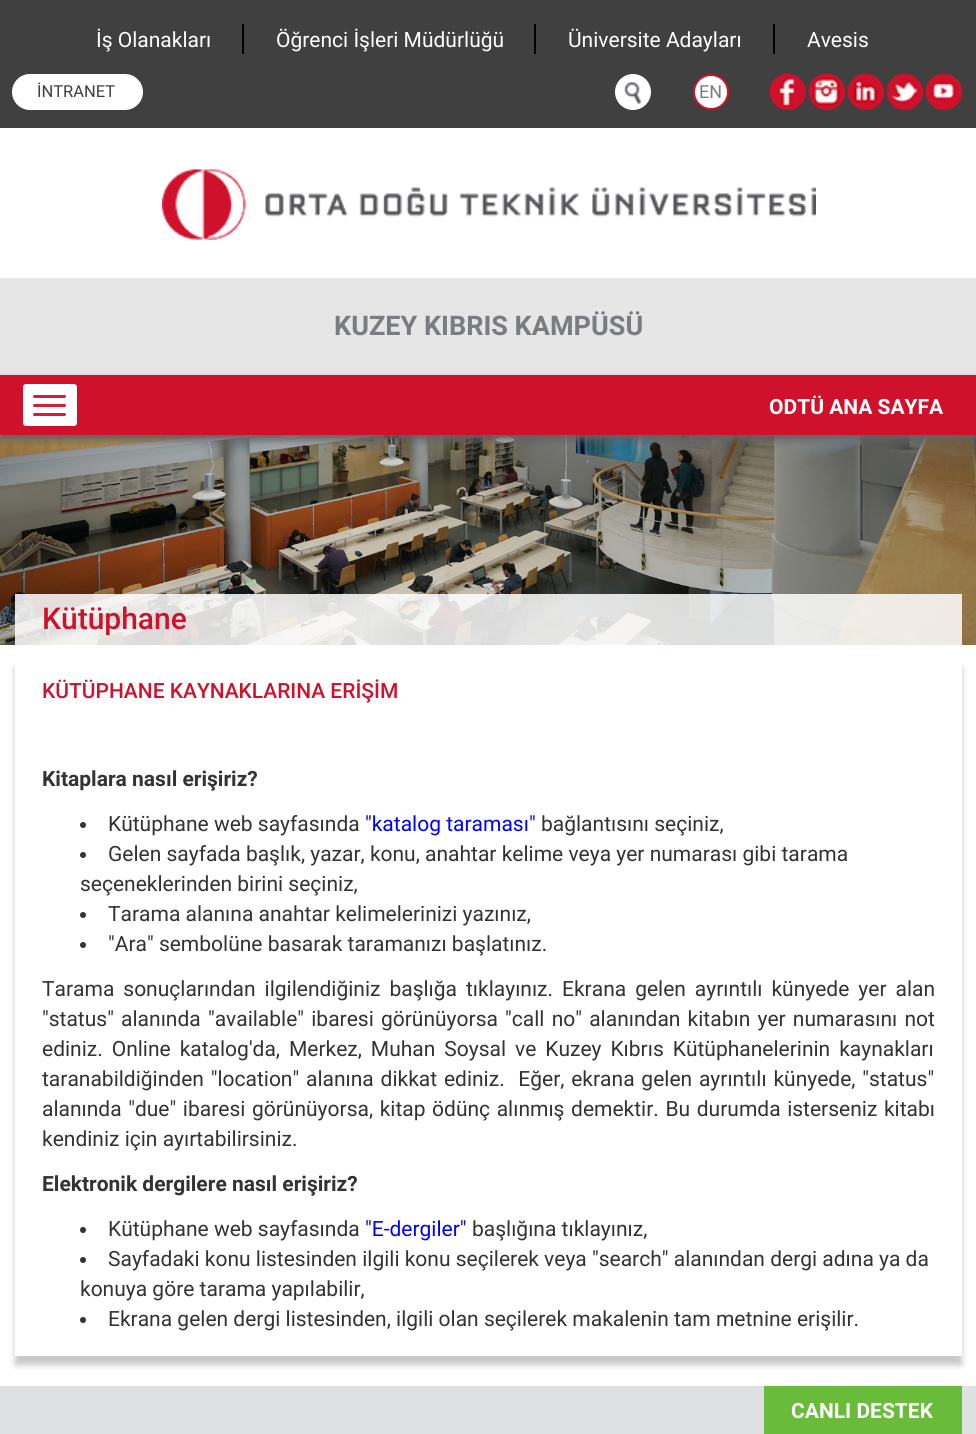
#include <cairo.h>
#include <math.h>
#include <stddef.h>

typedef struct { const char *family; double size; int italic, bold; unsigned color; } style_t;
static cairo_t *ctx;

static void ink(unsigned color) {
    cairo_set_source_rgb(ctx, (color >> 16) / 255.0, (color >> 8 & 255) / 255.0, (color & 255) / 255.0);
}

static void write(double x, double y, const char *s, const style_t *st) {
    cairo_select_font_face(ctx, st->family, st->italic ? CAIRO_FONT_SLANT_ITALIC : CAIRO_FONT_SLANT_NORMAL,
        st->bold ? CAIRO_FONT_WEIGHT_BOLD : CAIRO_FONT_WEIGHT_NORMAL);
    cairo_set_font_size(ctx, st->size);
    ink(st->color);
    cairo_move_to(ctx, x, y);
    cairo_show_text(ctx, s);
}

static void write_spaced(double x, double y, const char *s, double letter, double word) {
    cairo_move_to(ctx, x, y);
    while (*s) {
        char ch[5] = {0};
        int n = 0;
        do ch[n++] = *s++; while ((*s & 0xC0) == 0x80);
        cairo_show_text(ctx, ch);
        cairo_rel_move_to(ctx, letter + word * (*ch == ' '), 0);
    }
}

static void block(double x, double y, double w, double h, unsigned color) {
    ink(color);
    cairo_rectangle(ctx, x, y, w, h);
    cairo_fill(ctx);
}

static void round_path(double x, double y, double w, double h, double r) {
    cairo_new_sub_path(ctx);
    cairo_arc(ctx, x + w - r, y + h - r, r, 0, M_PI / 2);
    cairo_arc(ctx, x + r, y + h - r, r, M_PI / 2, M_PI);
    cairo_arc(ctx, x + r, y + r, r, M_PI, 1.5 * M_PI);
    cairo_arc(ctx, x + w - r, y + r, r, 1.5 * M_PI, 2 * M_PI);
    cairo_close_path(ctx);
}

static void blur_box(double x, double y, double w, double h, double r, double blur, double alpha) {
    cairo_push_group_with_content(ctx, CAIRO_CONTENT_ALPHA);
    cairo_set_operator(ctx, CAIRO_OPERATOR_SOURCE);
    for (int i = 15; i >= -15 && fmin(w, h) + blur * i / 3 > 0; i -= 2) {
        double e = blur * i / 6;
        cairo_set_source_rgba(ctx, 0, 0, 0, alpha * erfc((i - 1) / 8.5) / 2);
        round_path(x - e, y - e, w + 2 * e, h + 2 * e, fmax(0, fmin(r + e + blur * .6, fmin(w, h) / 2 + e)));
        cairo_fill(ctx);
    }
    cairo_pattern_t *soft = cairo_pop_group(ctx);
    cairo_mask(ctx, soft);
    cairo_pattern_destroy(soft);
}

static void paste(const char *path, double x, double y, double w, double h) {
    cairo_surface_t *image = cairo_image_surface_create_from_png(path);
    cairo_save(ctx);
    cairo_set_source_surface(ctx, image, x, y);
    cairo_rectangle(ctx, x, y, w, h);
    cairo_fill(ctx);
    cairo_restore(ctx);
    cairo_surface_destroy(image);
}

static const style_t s1 = {"Roboto", 21, 0, 0, 0xffffff};
static const style_t s2 = {"Roboto", 16.5, 0, 0, 0x404041};
static const style_t s3 = {"Roboto", 18, 0, 0, 0x7a7c81};
static const style_t s4 = {"Roboto", 27, 0, 1, 0x7a7c81};
static const style_t s5 = {"Roboto", 21, 0, 1, 0xffffff};
static const style_t s6 = {"Roboto Medium", 30, 0, 0, 0xd0112b};
static const style_t s7 = {"Roboto Medium", 21, 0, 0, 0xd0112b};
static const style_t s8 = {"Roboto", 21, 0, 1, 0x333333};
static const style_t s9 = {"Roboto", 21, 0, 0, 0x333333};
static const style_t s10 = {"Roboto", 21, 0, 0, 0x0000ff};

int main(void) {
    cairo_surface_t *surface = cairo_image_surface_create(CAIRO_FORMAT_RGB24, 976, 1434);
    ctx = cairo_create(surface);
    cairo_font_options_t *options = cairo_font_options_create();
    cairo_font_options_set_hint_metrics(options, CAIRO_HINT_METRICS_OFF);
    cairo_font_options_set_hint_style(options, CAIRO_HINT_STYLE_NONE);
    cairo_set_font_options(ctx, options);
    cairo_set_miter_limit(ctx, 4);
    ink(0xffffff);
    cairo_paint(ctx);
    block(0, 0, 976, 128, 0x404041);
    block(242, 24, 2, 30, 0x000000);
    write(96, 47, "İş Olanakları", &s1);
    block(534, 24, 2, 30, 0x000000);
    write(276, 47, "Öğrenci İşleri Müdürlüğü", &s1);
    block(773, 24, 2, 30, 0x000000);
    write(568, 47, "Üniversite Adayları", &s1);
    write(807, 47, "Avesis", &s1);
    round_path(12, 74, 131, 36, 18);
    cairo_fill(ctx);
    write(37, 97, "İNTRANET", &s2);
    ink(0xffffff);
    cairo_new_path(ctx);
    cairo_arc(ctx, 633, 92, 18, 0, 2 * M_PI);
    cairo_fill(ctx);
    paste("pic1.png", 623, 82, 19, 22);
    cairo_arc(ctx, 711, 92, 17, 0, 2 * M_PI);
    cairo_fill_preserve(ctx);
    ink(0xd0112b);
    cairo_stroke(ctx);
    write(699, 98, "EN", &s3);
    ink(0xd0112b);
    cairo_new_path(ctx);
    cairo_arc(ctx, 788, 92, 18, 0, 2 * M_PI);
    cairo_fill(ctx);
    paste("pic2.png", 769, 73, 37, 37);
    cairo_arc(ctx, 827, 92, 18, 0, 2 * M_PI);
    cairo_fill(ctx);
    paste("pic3.png", 808, 73, 32, 37);
    cairo_arc(ctx, 866, 92, 18, 0, 2 * M_PI);
    cairo_fill(ctx);
    paste("pic4.png", 847, 73, 31, 37);
    cairo_arc(ctx, 905, 92, 18, 0, 2 * M_PI);
    cairo_fill(ctx);
    paste("pic5.png", 886, 73, 37, 37);
    cairo_arc(ctx, 944, 92, 18, 0, 2 * M_PI);
    cairo_fill(ctx);
    paste("pic6.png", 925, 73, 37, 37);
    block(0, 278, 976, 97, 0xe6e6e6);
    paste("pic7.png", 162, 169, 654, 71);
    write(334, 335, "KUZEY KIBRIS KAMPÜSÜ", &s4);
    paste("pic8.png", 0, 435, 976, 210);
    ink(0x606060);
    blur_box(0, 380, 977, 60, 0, 4, 1);
    block(0, 375, 976, 60, 0xd0112b);
    ink(0xffffff);
    round_path(24, 385, 52, 40, 2);
    cairo_fill_preserve(ctx);
    cairo_stroke(ctx);
    ink(0xce2238);
    round_path(33, 395, 33, 3, 1.5);
    cairo_fill(ctx);
    round_path(33, 404, 33, 3, 1.5);
    cairo_fill(ctx);
    round_path(33, 413, 33, 3, 1.5);
    cairo_fill(ctx);
    write(769, 414, "ODTÜ ANA SAYFA", &s5);
    cairo_set_source_rgba(ctx, 1, 1, 1, 0.85);
    cairo_rectangle(ctx, 15, 594, 947, 51);
    cairo_fill(ctx);
    write(42, 629, "Kütüphane", &s6);
    cairo_save(ctx);
    cairo_set_fill_rule(ctx, CAIRO_FILL_RULE_EVEN_ODD);
    cairo_new_path(ctx);
    cairo_move_to(ctx, 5, 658);
    cairo_line_to(ctx, 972, 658);
    cairo_line_to(ctx, 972, 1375);
    cairo_line_to(ctx, 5, 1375);
    cairo_close_path(ctx);
    cairo_move_to(ctx, 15, 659);
    cairo_line_to(ctx, 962, 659);
    cairo_line_to(ctx, 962, 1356);
    cairo_line_to(ctx, 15, 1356);
    cairo_close_path(ctx);
    cairo_clip(ctx);
    ink(0xc8c8c8);
    blur_box(15, 668, 947, 697, 0, 3, 1);
    cairo_restore(ctx);
    write(42, 698, "KÜTÜPHANE KAYNAKLARINA ERİŞİM", &s7);
    write(42, 786, "Kitaplara nasıl erişiriz?", &s8);
    cairo_new_path(ctx);
    cairo_arc(ctx, 83, 825, 3, 0, 2 * M_PI);
    cairo_fill(ctx);
    write(108, 831, "Kütüphane web sayfasında", &s9);
    write(365, 831, "\"katalog taraması\"", &s10);
    write(541, 831, "bağlantısını seçiniz,", &s9);
    cairo_new_path(ctx);
    cairo_arc(ctx, 83, 855, 3, 0, 2 * M_PI);
    cairo_fill(ctx);
    write(108, 861, "Gelen sayfada başlık, yazar, konu, anahtar kelime veya yer numarası gibi tarama", &s9);
    write(80, 891, "seçeneklerinden birini seçiniz,", &s9);
    cairo_new_path(ctx);
    cairo_arc(ctx, 83, 915, 3, 0, 2 * M_PI);
    cairo_fill(ctx);
    write(108, 921, "Tarama alanına anahtar kelimelerinizi yazınız,", &s9);
    cairo_new_path(ctx);
    cairo_arc(ctx, 83, 945, 3, 0, 2 * M_PI);
    cairo_fill(ctx);
    write(108, 951, "\"Ara\" sembolüne basarak taramanızı başlatınız.", &s9);
    write_spaced(42, 996, "Tarama sonuçlarından ilgilendiğiniz başlığa tıklayınız. Ekrana gelen ayrıntılı künyede yer alan", 0, 3.75);
    write_spaced(42, 1026, "\"status\" alanında \"available\" ibaresi görünüyorsa \"call no\" alanından kitabın yer numarasını not", 0, 2);
    write_spaced(42, 1056, "ediniz. Online katalog'da, Merkez, Muhan Soysal ve Kuzey Kıbrıs Kütüphanelerinin kaynakları", 0, 3.75);
    write_spaced(42, 1086, "taranabildiğinden \"location\" alanına dikkat ediniz.  Eğer, ekrana gelen ayrıntılı künyede, \"status\"", 0, 1.6);
    write_spaced(42, 1116, "alanında \"due\" ibaresi görünüyorsa, kitap ödünç alınmış demektir. Bu durumda isterseniz kitabı", 0, 1.4);
    write(42, 1146, "kendiniz için ayırtabilirsiniz.", &s9);
    write(42, 1191, "Elektronik dergilere nasıl erişiriz?", &s8);
    cairo_new_path(ctx);
    cairo_arc(ctx, 83, 1230, 3, 0, 2 * M_PI);
    cairo_fill(ctx);
    write(108, 1236, "Kütüphane web sayfasında", &s9);
    write(365, 1236, "\"E-dergiler\"", &s10);
    write(472, 1236, "başlığına tıklayınız,", &s9);
    cairo_new_path(ctx);
    cairo_arc(ctx, 83, 1260, 3, 0, 2 * M_PI);
    cairo_fill(ctx);
    write(108, 1266, "Sayfadaki konu listesinden ilgili konu seçilerek veya \"search\" alanından dergi adına ya da", &s9);
    write(80, 1296, "konuya göre tarama yapılabilir,", &s9);
    cairo_new_path(ctx);
    cairo_arc(ctx, 83, 1320, 3, 0, 2 * M_PI);
    cairo_fill(ctx);
    write(108, 1326, "Ekrana gelen dergi listesinden, ilgili olan seçilerek makalenin tam metnine erişilir.", &s9);
    block(0, 1386, 976, 48, 0xdfe0e1);
    block(764, 1386, 198, 48, 0x68bc39);
    write(791, 1418, "CANLI DESTEK", &s5);
    cairo_surface_write_to_png(surface, "screenshot.png");
    cairo_font_options_destroy(options);
    cairo_destroy(ctx);
    cairo_surface_destroy(surface);
    return 0;
}
